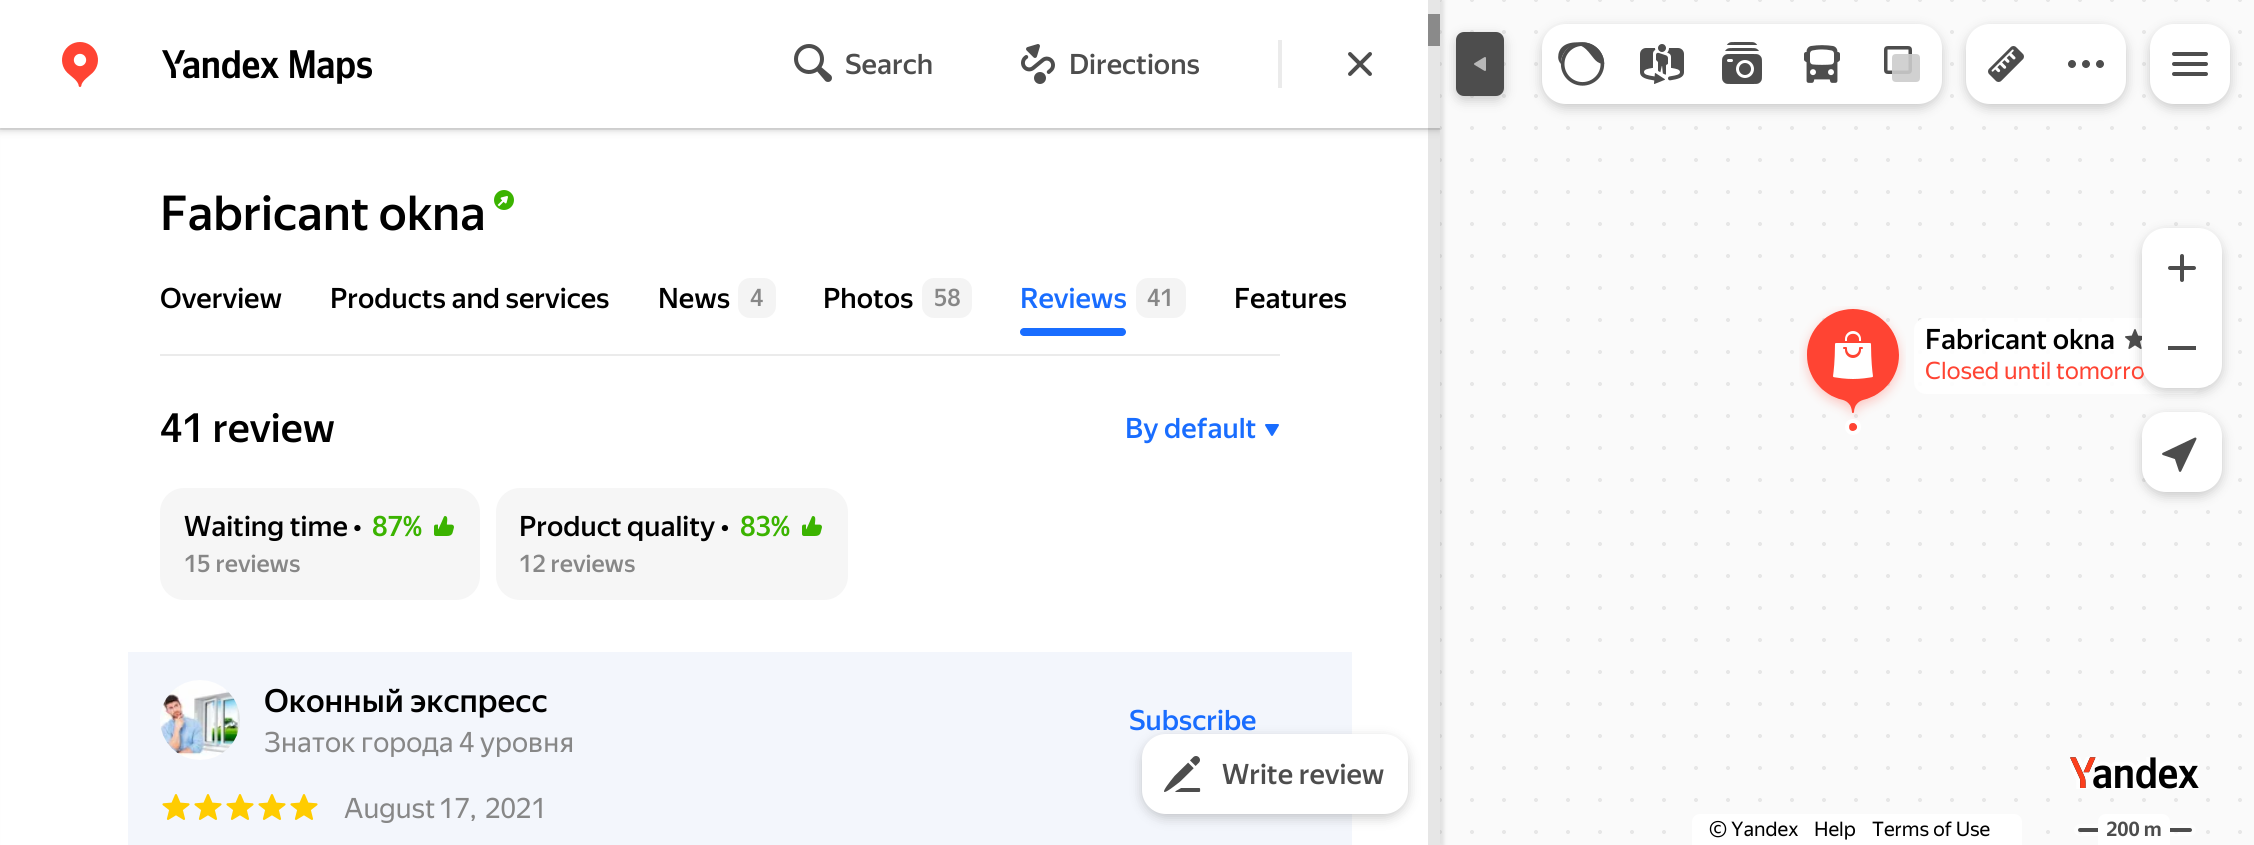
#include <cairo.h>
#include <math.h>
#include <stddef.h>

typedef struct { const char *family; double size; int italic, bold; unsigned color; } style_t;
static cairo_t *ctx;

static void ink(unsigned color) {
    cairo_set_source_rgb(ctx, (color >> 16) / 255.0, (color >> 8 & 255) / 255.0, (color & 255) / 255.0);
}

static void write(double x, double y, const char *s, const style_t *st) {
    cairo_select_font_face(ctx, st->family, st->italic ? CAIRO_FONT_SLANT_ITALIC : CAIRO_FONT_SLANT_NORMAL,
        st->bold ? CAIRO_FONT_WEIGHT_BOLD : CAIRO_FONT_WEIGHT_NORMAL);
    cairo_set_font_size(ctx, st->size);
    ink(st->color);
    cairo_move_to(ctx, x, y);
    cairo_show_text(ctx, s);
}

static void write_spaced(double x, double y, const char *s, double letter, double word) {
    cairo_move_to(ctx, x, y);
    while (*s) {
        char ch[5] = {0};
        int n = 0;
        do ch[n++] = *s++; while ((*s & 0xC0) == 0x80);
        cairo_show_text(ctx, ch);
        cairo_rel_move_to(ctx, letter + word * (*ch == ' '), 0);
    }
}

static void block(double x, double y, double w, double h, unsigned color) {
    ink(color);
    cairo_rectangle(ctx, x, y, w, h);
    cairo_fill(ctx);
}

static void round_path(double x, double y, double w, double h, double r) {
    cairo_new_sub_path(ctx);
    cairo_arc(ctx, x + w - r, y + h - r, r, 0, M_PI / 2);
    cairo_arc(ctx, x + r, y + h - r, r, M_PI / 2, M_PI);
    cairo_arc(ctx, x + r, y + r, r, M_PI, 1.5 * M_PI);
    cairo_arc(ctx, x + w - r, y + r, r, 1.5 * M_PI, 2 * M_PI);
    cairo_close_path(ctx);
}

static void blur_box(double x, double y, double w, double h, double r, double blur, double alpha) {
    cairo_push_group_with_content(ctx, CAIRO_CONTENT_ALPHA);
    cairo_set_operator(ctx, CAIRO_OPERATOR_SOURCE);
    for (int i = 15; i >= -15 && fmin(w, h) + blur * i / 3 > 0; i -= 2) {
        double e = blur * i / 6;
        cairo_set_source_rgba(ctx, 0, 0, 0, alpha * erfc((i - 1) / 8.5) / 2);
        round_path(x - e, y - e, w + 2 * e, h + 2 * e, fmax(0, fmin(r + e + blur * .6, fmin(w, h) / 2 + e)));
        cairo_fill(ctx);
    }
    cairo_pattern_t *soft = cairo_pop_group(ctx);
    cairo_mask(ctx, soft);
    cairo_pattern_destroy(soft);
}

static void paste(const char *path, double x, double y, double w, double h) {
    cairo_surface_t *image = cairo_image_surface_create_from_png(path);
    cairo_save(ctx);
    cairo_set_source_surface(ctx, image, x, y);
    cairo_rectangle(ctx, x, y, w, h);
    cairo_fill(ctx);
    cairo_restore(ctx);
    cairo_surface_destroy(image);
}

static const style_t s1 = {"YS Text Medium", 28, 0, 0, 0x4d4d4d};
static const style_t s2 = {"YS Text Medium", 48, 0, 0, 0x000000};
static const style_t s3 = {"YS Text Medium", 28, 0, 0, 0x000000};
static const style_t s4 = {"YS Text Medium", 24, 0, 0, 0x878787};
static const style_t s5 = {"YS Text Medium", 28, 0, 0, 0x196dff};
static const style_t s6 = {"YS Text Medium", 40, 0, 0, 0x000000};
static const style_t s7 = {"YS Text Medium", 28, 0, 0, 0x3bb300};
static const style_t s8 = {"YS Text Medium", 32, 0, 0, 0x000000};
static const style_t s9 = {"YS Text", 28, 0, 0, 0x878787};
static const style_t s10 = {"YS Text", 24, 0, 0, 0xff4433};
static const style_t s11 = {"YS Text", 20, 0, 0, 0x000000};
static const style_t s12 = {"YS Text", 20, 0, 1, 0x4d4d4d};

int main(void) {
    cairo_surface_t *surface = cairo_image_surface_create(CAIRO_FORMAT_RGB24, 2254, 845);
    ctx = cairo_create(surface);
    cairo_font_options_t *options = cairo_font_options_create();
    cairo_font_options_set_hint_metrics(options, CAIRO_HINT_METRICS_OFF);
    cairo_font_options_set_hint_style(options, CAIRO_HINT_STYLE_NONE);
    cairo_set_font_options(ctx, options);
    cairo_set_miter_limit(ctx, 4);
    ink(0xffffff);
    cairo_paint(ctx);
    paste("pic1.png", 1440, 0, 814, 845);
    ink(0x000000);
    blur_box(4, 0, 1440, 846, 0, 2, 0.1);
    block(1, 616, 1439, 229, 0xffffff);
    block(0, 128, 1440, 2, 0xebebeb);
    block(1, 130, 1439, 486, 0xffffff);
    cairo_save(ctx);
    cairo_rectangle(ctx, 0, 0, 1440, 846);
    cairo_clip(ctx);
    ink(0x000000);
    blur_box(0, 122, 1440, 8, 0, 4, 0.2);
    cairo_restore(ctx);
    ink(0x000000);
    blur_box(1456, 36, 48, 64, 8, 6, 0.2);
    block(0, 0, 1440, 128, 0xffffff);
    paste("pic2.png", 62, 42, 36, 45);
    paste("pic3.png", 162, 50, 210, 34);
    paste("pic4.png", 794, 44, 38, 38);
    write(845, 74, "Search", &s1);
    paste("pic5.png", 1021, 44, 34, 40);
    write(1069, 74, "Directions", &s1);
    block(1278, 40, 4, 48, 0xebebeb);
    paste("pic6.png", 1348, 52, 24, 24);
    write(160, 230, "Fabricant okna", &s2);
    paste("pic7.png", 494, 190, 20, 20);
    write(160, 308, "Overview", &s3);
    write(330, 308, "Products and services", &s3);
    write(658, 308, "News", &s3);
    ink(0xf4f4f4);
    round_path(738, 278, 38, 40, 12);
    cairo_fill(ctx);
    write(750, 306, "4", &s4);
    write(823, 308, "Photos", &s3);
    ink(0xf4f4f4);
    round_path(922, 278, 50, 40, 12);
    cairo_fill(ctx);
    write(934, 306, "58", &s4);
    write(1020, 308, "Reviews", &s5);
    ink(0xf4f4f4);
    round_path(1136, 278, 50, 40, 12);
    cairo_fill(ctx);
    write(1147, 306, "41", &s4);
    write(1234, 308, "Features", &s3);
    ink(0x196dff);
    round_path(1020, 328, 106, 8, 4);
    cairo_fill(ctx);
    block(160, 354, 1120, 2, 0xebebeb);
    write(160, 442, "41 review", &s6);
    write(1125, 438, "By default", &s5);
    paste("pic8.png", 1265, 424, 14, 12);
    ink(0xf6f6f6);
    round_path(160, 488, 320, 112, 24);
    cairo_fill(ctx);
    write(184, 536, "Waiting time •", &s3);
    write(372, 536, "87%", &s7);
    paste("pic9.png", 434, 516, 20, 20);
    write(184, 572, "15 reviews", &s4);
    ink(0xf6f6f6);
    round_path(496, 488, 352, 112, 24);
    cairo_fill(ctx);
    write(519, 536, "Product quality •", &s3);
    write(740, 536, "83%", &s7);
    paste("pic9.png", 802, 516, 20, 20);
    write(519, 572, "12 reviews", &s4);
    block(128, 652, 1224, 193, 0xf3f6fc);
    paste("pic10.png", 160, 680, 80, 80);
    write(264, 712, "Оконный экспресс", &s8);
    write(264, 752, "Знаток города 4 уровня", &s9);
    write(1129, 730, "Subscribe", &s5);
    paste("pic11.png", 162, 794, 28, 26);
    paste("pic11.png", 194, 794, 28, 26);
    paste("pic11.png", 226, 794, 28, 26);
    paste("pic11.png", 258, 794, 28, 26);
    paste("pic11.png", 290, 794, 28, 26);
    cairo_select_font_face(ctx, "YS Text", CAIRO_FONT_SLANT_NORMAL, CAIRO_FONT_WEIGHT_NORMAL);
    ink(0x878787);
    write_spaced(344, 818, "August 17,", 0, -2);
    write_spaced(485, 818, "2021", 0, -2);
    ink(0x000000);
    blur_box(1142, 738, 266, 80, 24, 6, 0.2);
    ink(0xffffff);
    round_path(1142, 734, 266, 80, 24);
    cairo_fill(ctx);
    paste("pic12.png", 1164, 756, 37, 36);
    write(1222, 784, "Write review", &s1);
    cairo_set_source_rgba(ctx, 0, 0, 0, 0.1);
    cairo_rectangle(ctx, 1428, 0, 12, 845);
    cairo_fill(ctx);
    block(1428, 14, 12, 32, 0x8a8a8a);
    ink(0x4d4d4d);
    round_path(1456, 32, 48, 64, 8);
    cairo_fill(ctx);
    paste("pic13.png", 1474, 57, 12, 14);
    ink(0x000000);
    blur_box(1542, 28, 400, 80, 24, 6, 0.2);
    ink(0xffffff);
    cairo_new_path(ctx);
    cairo_move_to(ctx, 1566, 24);
    cairo_line_to(ctx, 1622, 24);
    cairo_line_to(ctx, 1622, 104);
    cairo_line_to(ctx, 1566, 104);
    cairo_curve_to(ctx, 1552.5, 104, 1542, 93.5, 1542, 80);
    cairo_line_to(ctx, 1542, 48);
    cairo_curve_to(ctx, 1542, 34.5, 1552.5, 24, 1566, 24);
    cairo_close_path(ctx);
    cairo_fill(ctx);
    paste("pic14.png", 1558, 42, 47, 44);
    block(1622, 24, 240, 80, 0xffffff);
    paste("pic15.png", 1640, 44, 44, 40);
    cairo_new_path(ctx);
    cairo_move_to(ctx, 1862, 24);
    cairo_line_to(ctx, 1918, 24);
    cairo_curve_to(ctx, 1931.5, 24, 1942, 34.5, 1942, 48);
    cairo_line_to(ctx, 1942, 80);
    cairo_curve_to(ctx, 1942, 93.5, 1931.5, 104, 1918, 104);
    cairo_line_to(ctx, 1862, 104);
    cairo_close_path(ctx);
    cairo_fill(ctx);
    paste("pic16.png", 1884, 46, 36, 36);
    paste("pic17.png", 1722, 42, 40, 42);
    paste("pic18.png", 1804, 45, 36, 38);
    ink(0x000000);
    blur_box(1966, 28, 160, 80, 24, 6, 0.2);
    ink(0xffffff);
    cairo_new_path(ctx);
    cairo_move_to(ctx, 1990, 24);
    cairo_line_to(ctx, 2046, 24);
    cairo_line_to(ctx, 2046, 104);
    cairo_line_to(ctx, 1990, 104);
    cairo_curve_to(ctx, 1976.5, 104, 1966, 93.5, 1966, 80);
    cairo_line_to(ctx, 1966, 48);
    cairo_curve_to(ctx, 1966, 34.5, 1976.5, 24, 1990, 24);
    cairo_close_path(ctx);
    cairo_fill(ctx);
    paste("pic19.png", 1988, 46, 36, 36);
    cairo_new_path(ctx);
    cairo_move_to(ctx, 2046, 24);
    cairo_line_to(ctx, 2102, 24);
    cairo_curve_to(ctx, 2115.5, 24, 2126, 34.5, 2126, 48);
    cairo_line_to(ctx, 2126, 80);
    cairo_curve_to(ctx, 2126, 93.5, 2115.5, 104, 2102, 104);
    cairo_line_to(ctx, 2046, 104);
    cairo_close_path(ctx);
    cairo_fill(ctx);
    paste("pic20.png", 2068, 60, 36, 8);
    ink(0x000000);
    blur_box(2150, 28, 80, 80, 24, 6, 0.2);
    ink(0xffffff);
    round_path(2150, 24, 80, 80, 24);
    cairo_fill(ctx);
    paste("pic21.png", 2172, 52, 36, 24);
    cairo_set_source_rgba(ctx, 1, 1, 1, 0.9);
    round_path(1914, 318, 288, 76, 12);
    cairo_fill(ctx);
    paste("pic27.png", 2125, 329, 17, 20);
    ink(0x000000);
    blur_box(2142, 232, 80, 160, 24, 6, 0.2);
    ink(0xffffff);
    cairo_new_path(ctx);
    cairo_move_to(ctx, 2166, 228);
    cairo_line_to(ctx, 2198, 228);
    cairo_curve_to(ctx, 2211.5, 228, 2222, 238.5, 2222, 252);
    cairo_line_to(ctx, 2222, 308);
    cairo_line_to(ctx, 2142, 308);
    cairo_line_to(ctx, 2142, 252);
    cairo_curve_to(ctx, 2142, 238.5, 2152.5, 228, 2166, 228);
    cairo_close_path(ctx);
    cairo_fill(ctx);
    paste("pic22.png", 2168, 254, 28, 28);
    write(1925, 379, "Closed until tomorro", &s10);
    ink(0xffffff);
    cairo_new_path(ctx);
    cairo_move_to(ctx, 2142, 308);
    cairo_line_to(ctx, 2222, 308);
    cairo_line_to(ctx, 2222, 364);
    cairo_curve_to(ctx, 2222, 377.5, 2211.5, 388, 2198, 388);
    cairo_line_to(ctx, 2166, 388);
    cairo_curve_to(ctx, 2152.5, 388, 2142, 377.5, 2142, 364);
    cairo_close_path(ctx);
    cairo_fill(ctx);
    block(2168, 346, 28, 4, 0x4d4d4d);
    ink(0x000000);
    blur_box(2142, 416, 80, 80, 24, 6, 0.2);
    ink(0xffffff);
    round_path(2142, 412, 80, 80, 24);
    cairo_fill(ctx);
    paste("pic23.png", 2162, 437, 35, 35);
    paste("pic24.png", 2070, 757, 129, 32);
    cairo_new_path(ctx);
    cairo_move_to(ctx, 1700, 814);
    cairo_line_to(ctx, 2014, 814);
    cairo_curve_to(ctx, 2018.5, 814, 2022, 817.5, 2022, 822);
    cairo_line_to(ctx, 2022, 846);
    cairo_line_to(ctx, 1692, 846);
    cairo_line_to(ctx, 1692, 822);
    cairo_curve_to(ctx, 1692, 817.5, 1695.5, 814, 1700, 814);
    cairo_close_path(ctx);
    cairo_fill(ctx);
    write(1709, 836, "© Yandex", &s11);
    write(1814, 836, "Help", &s11);
    write(1872, 836, "Terms of Use", &s11);
    cairo_set_source_rgba(ctx, 1, 1, 1, 0.6);
    round_path(2074, 824, 122, 12, 6);
    cairo_fill(ctx);
    ink(0x4d4d4d);
    round_path(2078, 828, 114, 4, 2);
    cairo_fill(ctx);
    ink(0xffffff);
    cairo_new_path(ctx);
    cairo_move_to(ctx, 2106, 814);
    cairo_line_to(ctx, 2162, 814);
    cairo_curve_to(ctx, 2166.5, 814, 2170, 817.5, 2170, 822);
    cairo_line_to(ctx, 2170, 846);
    cairo_line_to(ctx, 2098, 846);
    cairo_line_to(ctx, 2098, 822);
    cairo_curve_to(ctx, 2098, 817.5, 2101.5, 814, 2106, 814);
    cairo_close_path(ctx);
    cairo_fill(ctx);
    write(2106, 836, "200 m", &s12);
    paste("pic25.png", 1799, 306, 107, 129);
    paste("pic26.png", 1833, 331, 40, 48);
    write(1925, 349, "Fabricant okna", &s3);
    cairo_surface_write_to_png(surface, "screenshot.png");
    cairo_font_options_destroy(options);
    cairo_destroy(ctx);
    cairo_surface_destroy(surface);
    return 0;
}
